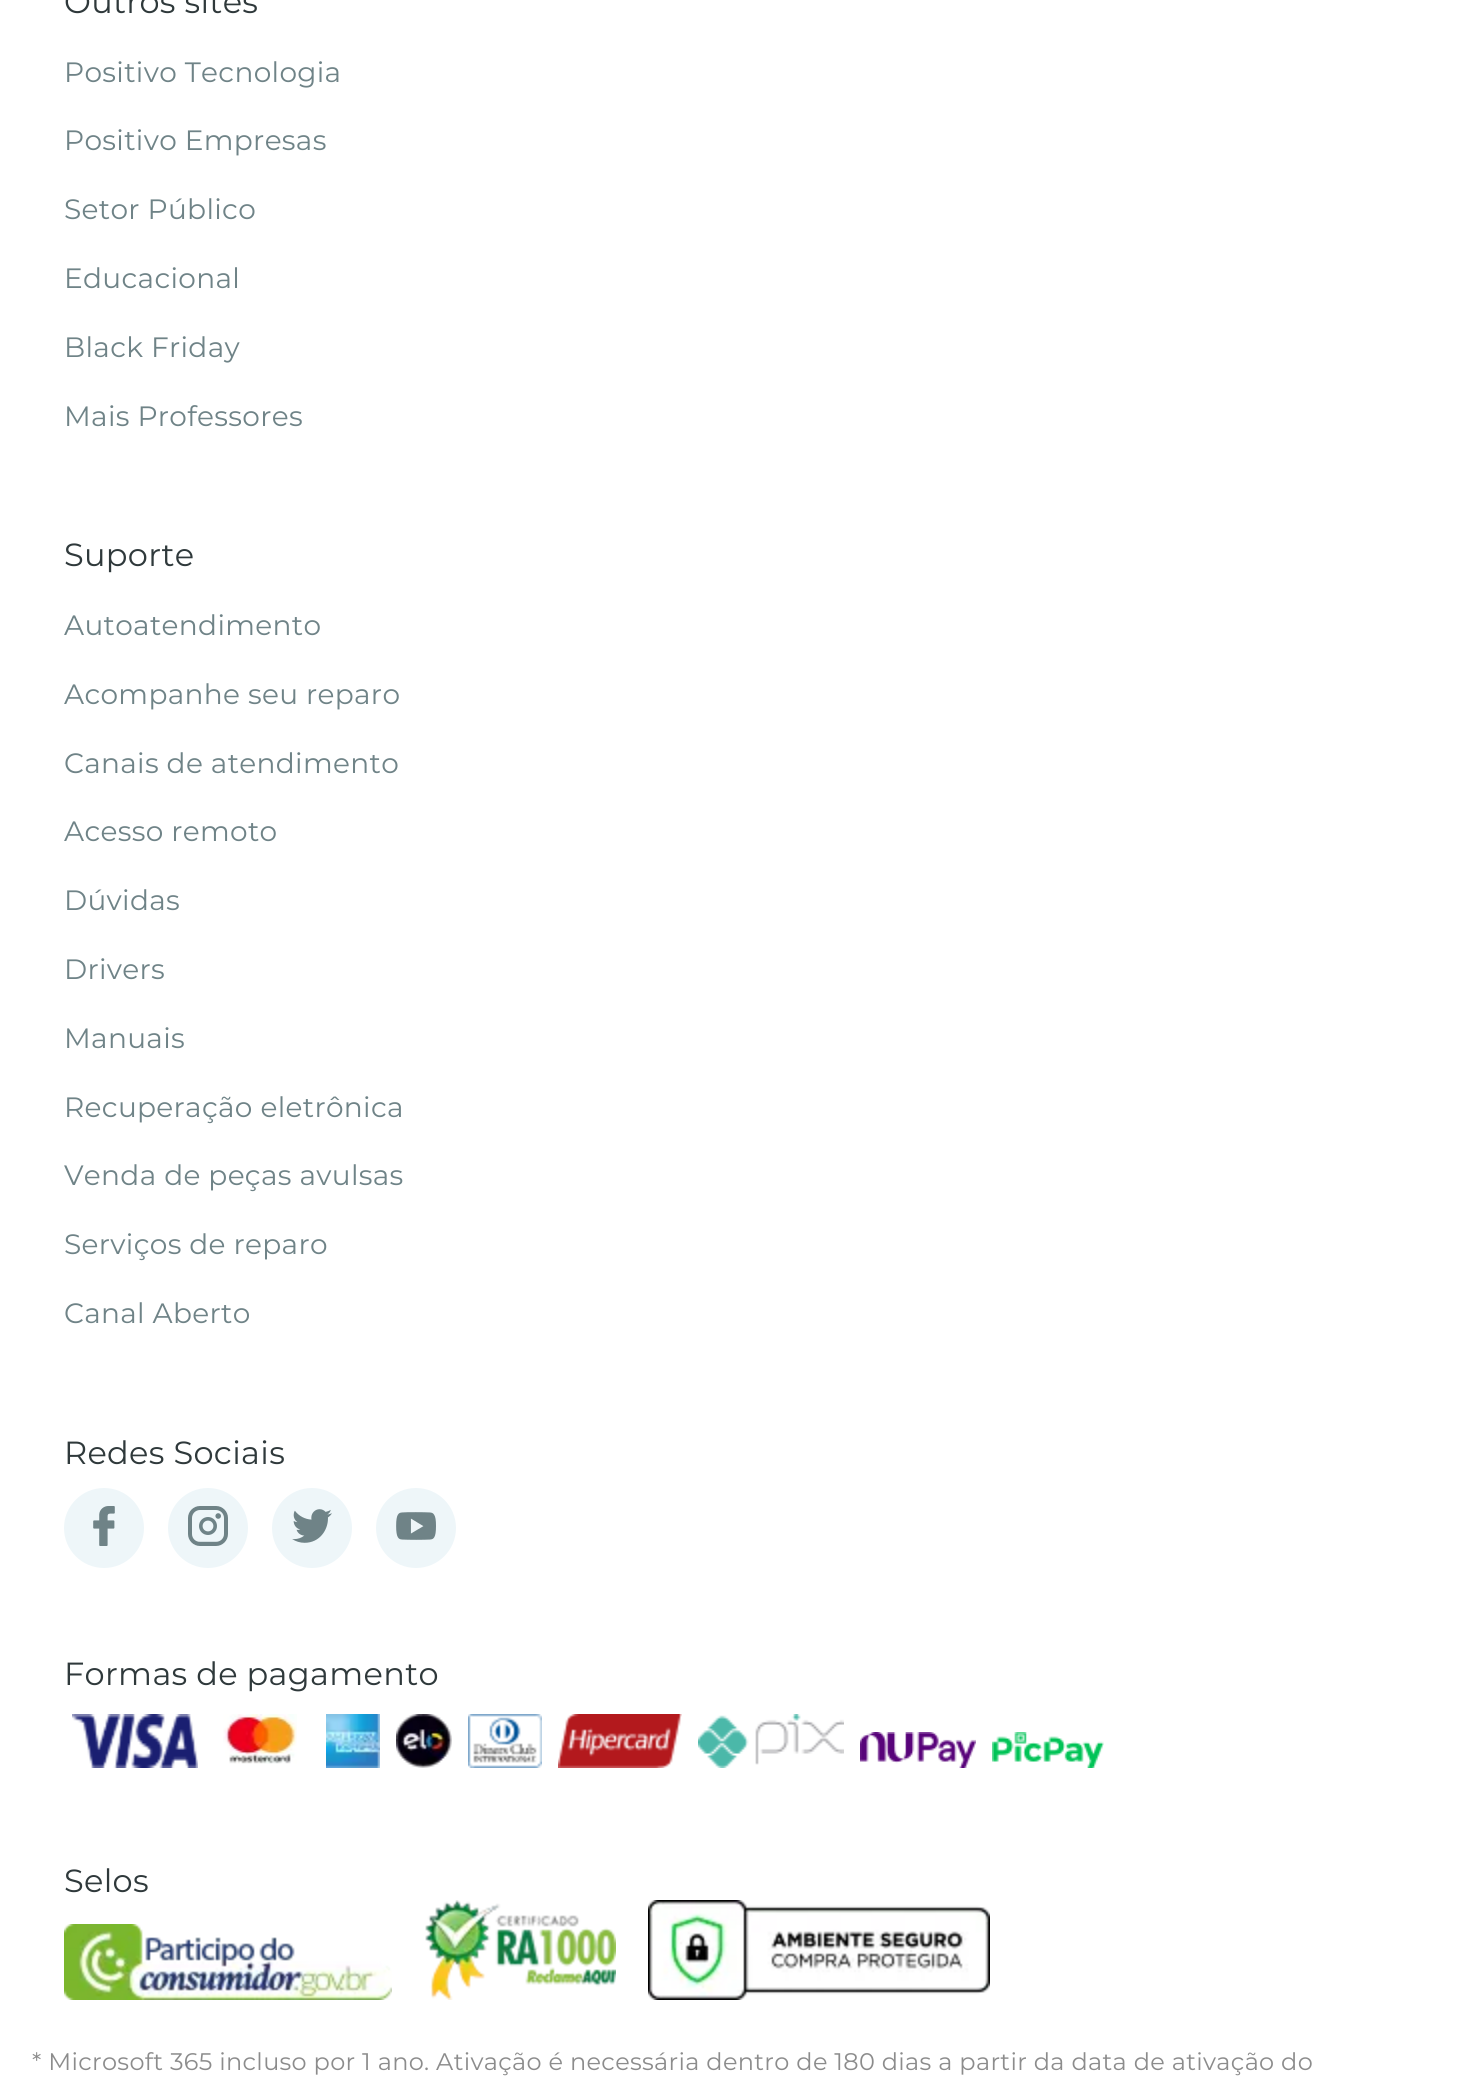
#include <cairo.h>
#include <math.h>
#include <stddef.h>

static cairo_t *ctx;

static void ink(unsigned color) {
    cairo_set_source_rgb(ctx, (color >> 16) / 255.0, (color >> 8 & 255) / 255.0, (color & 255) / 255.0);
}

static void write_spaced(double x, double y, const char *s, double letter, double word) {
    cairo_move_to(ctx, x, y);
    while (*s) {
        char ch[5] = {0};
        int n = 0;
        do ch[n++] = *s++; while ((*s & 0xC0) == 0x80);
        cairo_show_text(ctx, ch);
        cairo_rel_move_to(ctx, letter + word * (*ch == ' '), 0);
    }
}

static void paste(const char *path, double x, double y, double w, double h) {
    cairo_surface_t *image = cairo_image_surface_create_from_png(path);
    cairo_save(ctx);
    cairo_set_source_surface(ctx, image, x, y);
    cairo_rectangle(ctx, x, y, w, h);
    cairo_fill(ctx);
    cairo_restore(ctx);
    cairo_surface_destroy(image);
}

int main(void) {
    cairo_surface_t *surface = cairo_image_surface_create(CAIRO_FORMAT_RGB24, 1464, 2089);
    ctx = cairo_create(surface);
    cairo_font_options_t *options = cairo_font_options_create();
    cairo_font_options_set_hint_metrics(options, CAIRO_HINT_METRICS_OFF);
    cairo_font_options_set_hint_style(options, CAIRO_HINT_STYLE_NONE);
    cairo_set_font_options(ctx, options);
    cairo_set_miter_limit(ctx, 4);
    ink(0xffffff);
    cairo_paint(ctx);
    cairo_select_font_face(ctx, "Montserrat", CAIRO_FONT_SLANT_NORMAL, CAIRO_FONT_WEIGHT_NORMAL);
    cairo_set_font_size(ctx, 32);
    ink(0x2f393b);
    write_spaced(64, 13, "Outros sites", 0.32, 0);
    cairo_set_font_size(ctx, 28);
    ink(0x6f8387);
    write_spaced(64, 82, "Positivo Tecnologia", 0.32, 0);
    write_spaced(64, 150, "Positivo Empresas", 0.32, 0);
    write_spaced(64, 219, "Setor Público", 0.32, 0);
    write_spaced(64, 288, "Educacional", 0.32, 0);
    write_spaced(64, 357, "Black Friday", 0.32, 0);
    write_spaced(64, 426, "Mais Professores", 0.32, 0);
    cairo_set_font_size(ctx, 32);
    ink(0x2f393b);
    write_spaced(64, 566, "Suporte", 0.32, 0);
    cairo_set_font_size(ctx, 28);
    ink(0x6f8387);
    write_spaced(64, 635, "Autoatendimento", 0.32, 0);
    write_spaced(64, 704, "Acompanhe seu reparo", 0.32, 0);
    write_spaced(64, 773, "Canais de atendimento", 0.32, 0);
    write_spaced(64, 841, "Acesso remoto", 0.32, 0);
    write_spaced(64, 910, "Dúvidas", 0.32, 0);
    write_spaced(64, 979, "Drivers", 0.32, 0);
    write_spaced(64, 1048, "Manuais", 0.32, 0);
    write_spaced(64, 1117, "Recuperação eletrônica", 0.32, 0);
    write_spaced(64, 1185, "Venda de peças avulsas", 0.32, 0);
    write_spaced(64, 1254, "Serviços de reparo", 0.32, 0);
    write_spaced(64, 1323, "Canal Aberto", 0.32, 0);
    cairo_set_font_size(ctx, 32);
    ink(0x2f393b);
    write_spaced(64, 1464, "Redes Sociais", 0.32, 0);
    ink(0xeef6f9);
    cairo_new_path(ctx);
    cairo_arc(ctx, 104, 1528, 40, 0, 2 * M_PI);
    cairo_fill(ctx);
    paste("pic1.png", 93, 1506, 22, 40);
    cairo_arc(ctx, 208, 1528, 40, 0, 2 * M_PI);
    cairo_fill(ctx);
    paste("pic2.png", 188, 1506, 40, 40);
    cairo_arc(ctx, 312, 1528, 40, 0, 2 * M_PI);
    cairo_fill(ctx);
    paste("pic3.png", 292, 1509, 40, 34);
    cairo_arc(ctx, 416, 1528, 40, 0, 2 * M_PI);
    cairo_fill(ctx);
    paste("pic4.png", 396, 1512, 40, 28);
    ink(0x2f393b);
    write_spaced(64, 1685, "Formas de pagamento", 0.32, 0);
    paste("pic5.png", 72, 1714, 126, 54);
    paste("pic6.png", 223, 1714, 74, 50);
    paste("pic7.png", 326, 1714, 54, 54);
    paste("pic8.png", 396, 1714, 56, 54);
    paste("pic9.png", 468, 1714, 74, 54);
    paste("pic10.png", 558, 1714, 124, 54);
    paste("pic11.png", 698, 1714, 146, 54);
    paste("pic12.png", 860, 1732, 116, 36);
    paste("pic13.png", 992, 1732, 112, 36);
    write_spaced(64, 1892, "Selos", 0.32, 0);
    paste("pic14.png", 64, 1924, 328, 76);
    paste("pic15.png", 425, 1900, 191, 100);
    paste("pic16.png", 648, 1900, 342, 100);
    cairo_set_font_size(ctx, 24);
    ink(0x8c8c8c);
    write_spaced(32, 2070, "* Microsoft 365 incluso por 1 ano. Ativação é necessária dentro de 180 dias a partir da data de ativação do", 0.32, 0);
    cairo_surface_write_to_png(surface, "screenshot.png");
    cairo_font_options_destroy(options);
    cairo_destroy(ctx);
    cairo_surface_destroy(surface);
    return 0;
}
